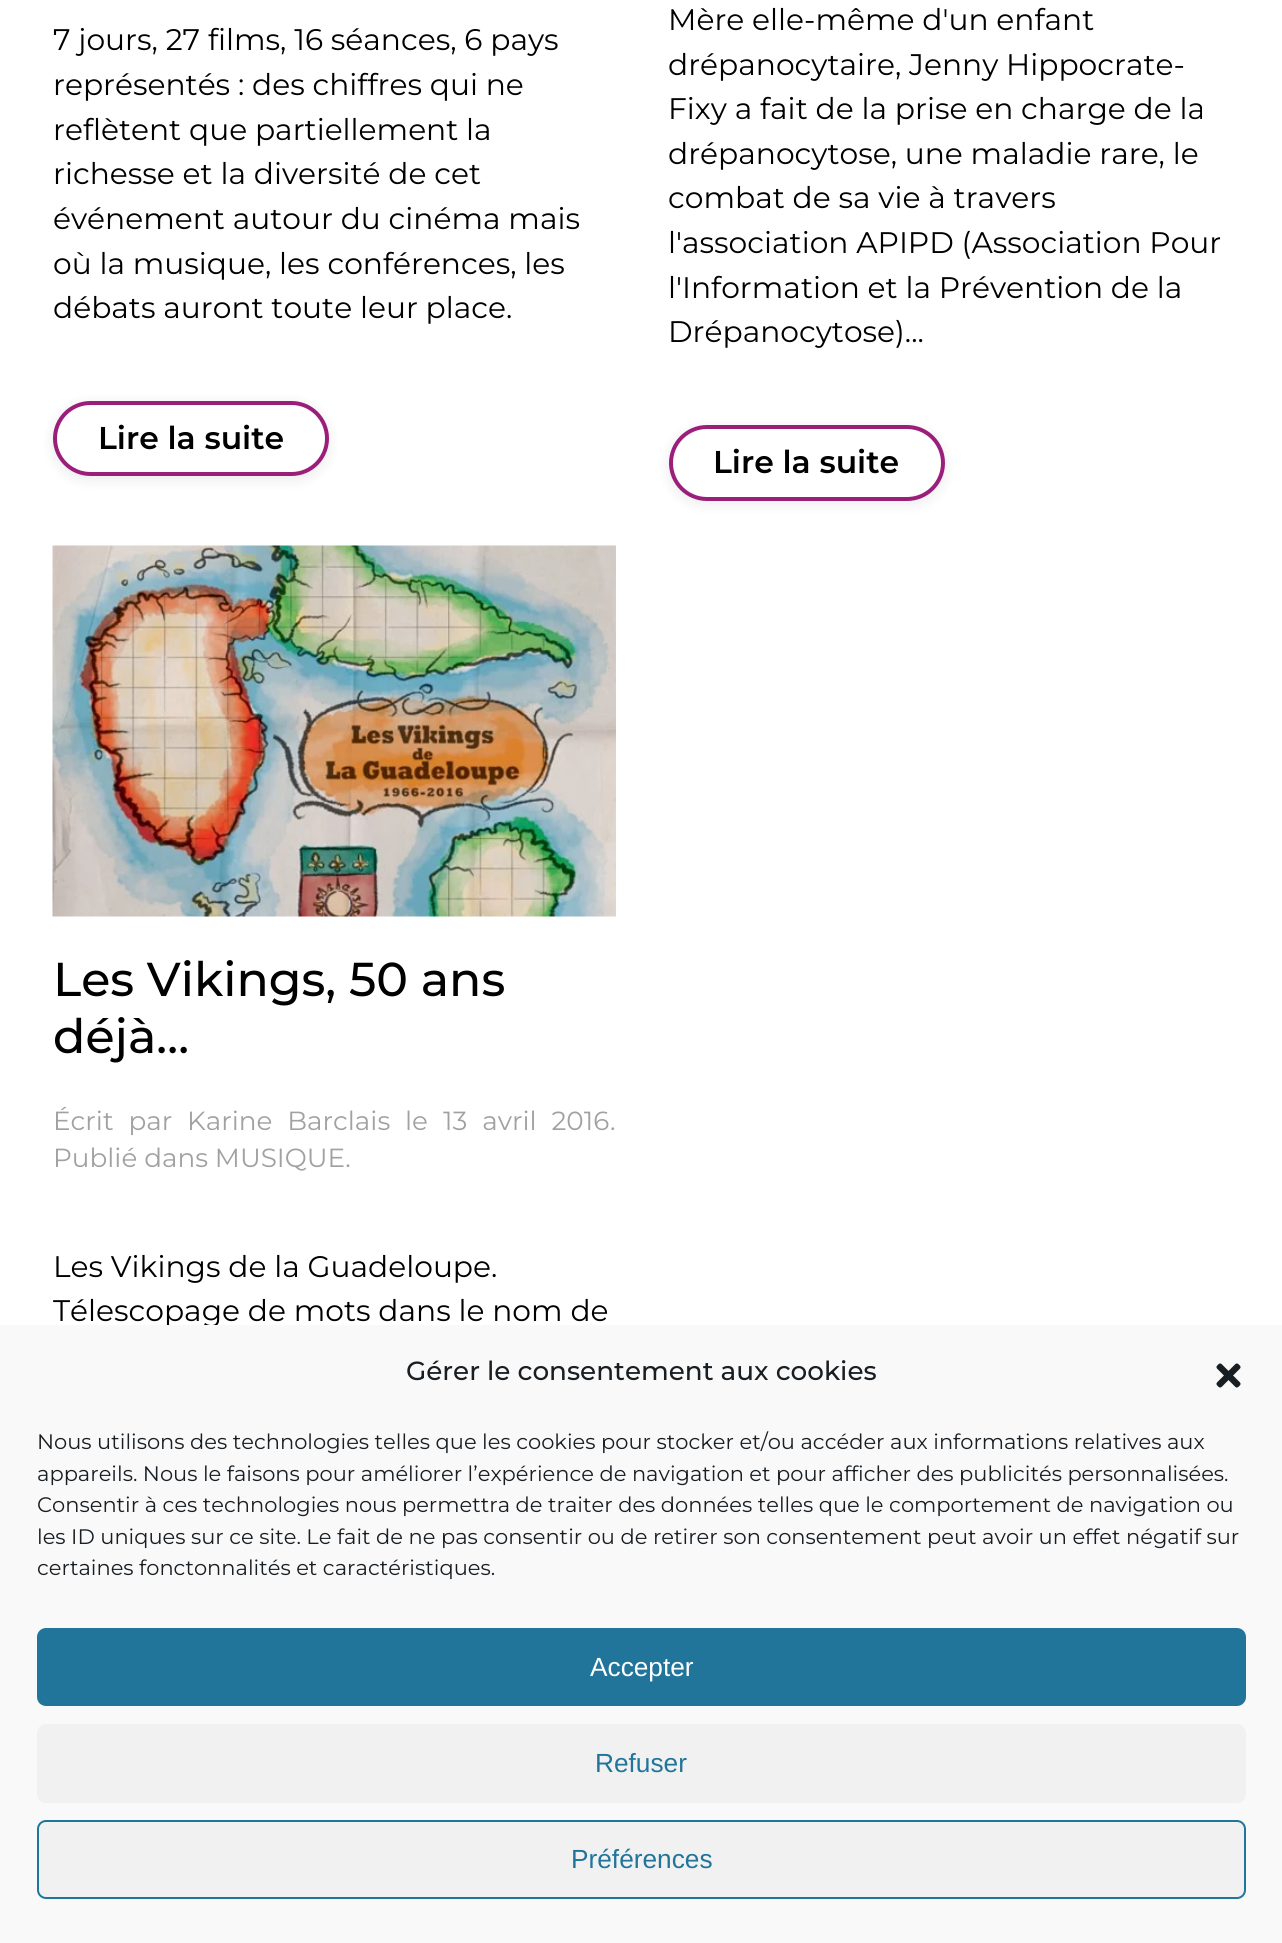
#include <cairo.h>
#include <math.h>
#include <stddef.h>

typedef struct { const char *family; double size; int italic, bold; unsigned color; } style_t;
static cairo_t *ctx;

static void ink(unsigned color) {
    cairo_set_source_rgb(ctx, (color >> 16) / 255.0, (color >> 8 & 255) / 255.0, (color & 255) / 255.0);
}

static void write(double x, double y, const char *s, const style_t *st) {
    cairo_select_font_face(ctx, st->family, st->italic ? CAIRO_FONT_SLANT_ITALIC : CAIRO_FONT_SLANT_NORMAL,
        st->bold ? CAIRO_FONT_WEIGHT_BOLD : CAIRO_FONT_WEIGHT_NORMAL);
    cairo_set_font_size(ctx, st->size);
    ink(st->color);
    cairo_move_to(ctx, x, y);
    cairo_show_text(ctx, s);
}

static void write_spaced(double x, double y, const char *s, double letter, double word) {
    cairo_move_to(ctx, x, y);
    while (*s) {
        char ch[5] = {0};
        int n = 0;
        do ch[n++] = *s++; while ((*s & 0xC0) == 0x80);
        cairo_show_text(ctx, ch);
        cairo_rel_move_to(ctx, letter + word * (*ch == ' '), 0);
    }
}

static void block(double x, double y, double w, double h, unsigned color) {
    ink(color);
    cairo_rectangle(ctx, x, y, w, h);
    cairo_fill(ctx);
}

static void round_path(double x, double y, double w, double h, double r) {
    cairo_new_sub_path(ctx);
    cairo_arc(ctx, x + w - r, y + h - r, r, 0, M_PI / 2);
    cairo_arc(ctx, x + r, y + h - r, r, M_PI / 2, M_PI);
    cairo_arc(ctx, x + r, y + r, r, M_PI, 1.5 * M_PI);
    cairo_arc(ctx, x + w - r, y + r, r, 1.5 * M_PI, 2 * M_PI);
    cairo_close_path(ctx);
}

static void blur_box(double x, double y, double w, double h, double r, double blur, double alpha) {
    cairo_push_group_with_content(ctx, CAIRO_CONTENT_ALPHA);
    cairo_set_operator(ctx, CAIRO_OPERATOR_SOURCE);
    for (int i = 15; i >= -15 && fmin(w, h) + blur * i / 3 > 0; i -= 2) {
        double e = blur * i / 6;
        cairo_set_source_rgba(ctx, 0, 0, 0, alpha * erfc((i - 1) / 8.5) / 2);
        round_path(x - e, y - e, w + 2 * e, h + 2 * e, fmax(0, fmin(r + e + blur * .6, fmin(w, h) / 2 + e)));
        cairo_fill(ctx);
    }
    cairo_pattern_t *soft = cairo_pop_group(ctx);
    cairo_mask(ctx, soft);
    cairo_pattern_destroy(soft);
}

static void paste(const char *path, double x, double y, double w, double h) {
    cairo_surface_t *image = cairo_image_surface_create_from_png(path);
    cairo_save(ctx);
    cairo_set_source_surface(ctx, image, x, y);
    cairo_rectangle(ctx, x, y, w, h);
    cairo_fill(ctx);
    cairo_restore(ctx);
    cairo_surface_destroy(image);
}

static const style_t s1 = {"Montserrat Thin", 29.75, 0, 0, 0x000000};
static const style_t s2 = {"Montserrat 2 Thin", 31.5, 0, 0, 0x000000};
static const style_t s3 = {"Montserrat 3 Thin", 47.5, 0, 0, 0x000000};
static const style_t s4 = {"Montserrat Thin", 26.25, 0, 0, 0xa1a1a1};
static const style_t s5 = {"Montserrat 3 Thin", 26.25, 0, 0, 0x191e23};
static const style_t s6 = {"Montserrat Thin", 21, 0, 0, 0x191e23};
static const style_t s7 = {"Liberation Sans", 26.25, 0, 0, 0xffffff};
static const style_t s8 = {"Liberation Sans", 26.25, 0, 0, 0x21759b};

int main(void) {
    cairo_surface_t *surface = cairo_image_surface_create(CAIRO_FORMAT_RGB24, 1282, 1943);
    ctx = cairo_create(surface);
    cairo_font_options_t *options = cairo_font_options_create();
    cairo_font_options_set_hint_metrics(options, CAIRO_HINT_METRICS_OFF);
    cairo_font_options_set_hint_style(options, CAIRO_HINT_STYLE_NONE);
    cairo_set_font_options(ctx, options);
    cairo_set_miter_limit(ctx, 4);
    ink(0xffffff);
    cairo_paint(ctx);
    write(53, 50, "7 jours, 27 films, 16 séances, 6 pays", &s1);
    write(53, 95, "représentés : des chiffres qui ne", &s1);
    write(53, 140, "reflètent que partiellement la", &s1);
    write(53, 184, "richesse et la diversité de cet", &s1);
    write(53, 229, "événement autour du cinéma mais", &s1);
    write(53, 274, "où la musique, les conférences, les", &s1);
    write(53, 318, "débats auront toute leur place.", &s1);
    ink(0x000000);
    blur_box(53, 404, 276, 76, 38, 7, 0.08);
    ink(0xffffff);
    round_path(55, 403, 272, 71, 35.5);
    cairo_fill_preserve(ctx);
    ink(0x9b1e7a);
    cairo_set_line_width(ctx, 4);
    cairo_stroke(ctx);
    write(98, 449, "Lire la suite", &s2);
    write(668, 30, "Mère elle-même d'un enfant", &s1);
    write(668, 75, "drépanocytaire, Jenny Hippocrate-", &s1);
    write(668, 119, "Fixy a fait de la prise en charge de la", &s1);
    write(668, 164, "drépanocytose, une maladie rare, le", &s1);
    write(668, 208, "combat de sa vie à travers", &s1);
    write(668, 253, "l'association APIPD (Association Pour", &s1);
    write(668, 298, "l'Information et la Prévention de la", &s1);
    write(668, 342, "Drépanocytose)...", &s1);
    ink(0x000000);
    blur_box(669, 429, 276, 75, 37.5, 7, 0.08);
    ink(0xffffff);
    round_path(671, 427, 272, 72, 36);
    cairo_fill_preserve(ctx);
    ink(0x9b1e7a);
    cairo_stroke(ctx);
    write(713, 473, "Lire la suite", &s2);
    paste("pic1.png", 52, 545, 564, 372);
    write(53, 996, "Les Vikings, 50 ans", &s3);
    write(53, 1053, "déjà…", &s3);
    cairo_select_font_face(ctx, "Montserrat Thin", CAIRO_FONT_SLANT_NORMAL, CAIRO_FONT_WEIGHT_NORMAL);
    cairo_set_font_size(ctx, 26.25);
    ink(0xa1a1a1);
    write_spaced(53, 1130, "Écrit par", 0, 8);
    write_spaced(187, 1130, "Karine Barclais", 0, 8);
    write(405, 1130, "le", &s4);
    write_spaced(443, 1130, "13 avril 2016", 0, 8);
    write(610, 1130, ".", &s4);
    write(53, 1167, "Publié dans MUSIQUE.", &s4);
    write(53, 1277, "Les Vikings de la Guadeloupe.", &s1);
    write(53, 1321, "Télescopage de mots dans le nom de", &s1);
    block(0, 1325, 1282, 618, 0xf9f9f9);
    write(406, 1380, "Gérer le consentement aux cookies", &s5);
    paste("pic2.png", 1216, 1363, 25, 25);
    write(37, 1449, "Nous utilisons des technologies telles que les cookies pour stocker et/ou accéder aux informations relatives aux", &s6);
    write(37, 1481, "appareils. Nous le faisons pour améliorer l’expérience de navigation et pour afficher des publicités personnalisées.", &s6);
    write(37, 1512, "Consentir à ces technologies nous permettra de traiter des données telles que le comportement de navigation ou", &s6);
    write(37, 1544, "les ID uniques sur ce site. Le fait de ne pas consentir ou de retirer son consentement peut avoir un effet négatif sur", &s6);
    write(37, 1575, "certaines fonctonnalités et caractéristiques.", &s6);
    ink(0x21759b);
    round_path(38, 1629, 1207, 76, 8);
    cairo_fill_preserve(ctx);
    cairo_set_line_width(ctx, 2);
    cairo_stroke(ctx);
    write(590, 1676, "Accepter", &s7);
    ink(0xf1f1f1);
    round_path(37, 1724, 1209, 79, 9);
    cairo_fill(ctx);
    write(595, 1772, "Refuser", &s8);
    ink(0xf1f1f1);
    round_path(38, 1821, 1207, 77, 8);
    cairo_fill_preserve(ctx);
    ink(0x21759b);
    cairo_stroke(ctx);
    write(571, 1868, "Préférences", &s8);
    cairo_surface_write_to_png(surface, "screenshot.png");
    cairo_font_options_destroy(options);
    cairo_destroy(ctx);
    cairo_surface_destroy(surface);
    return 0;
}
